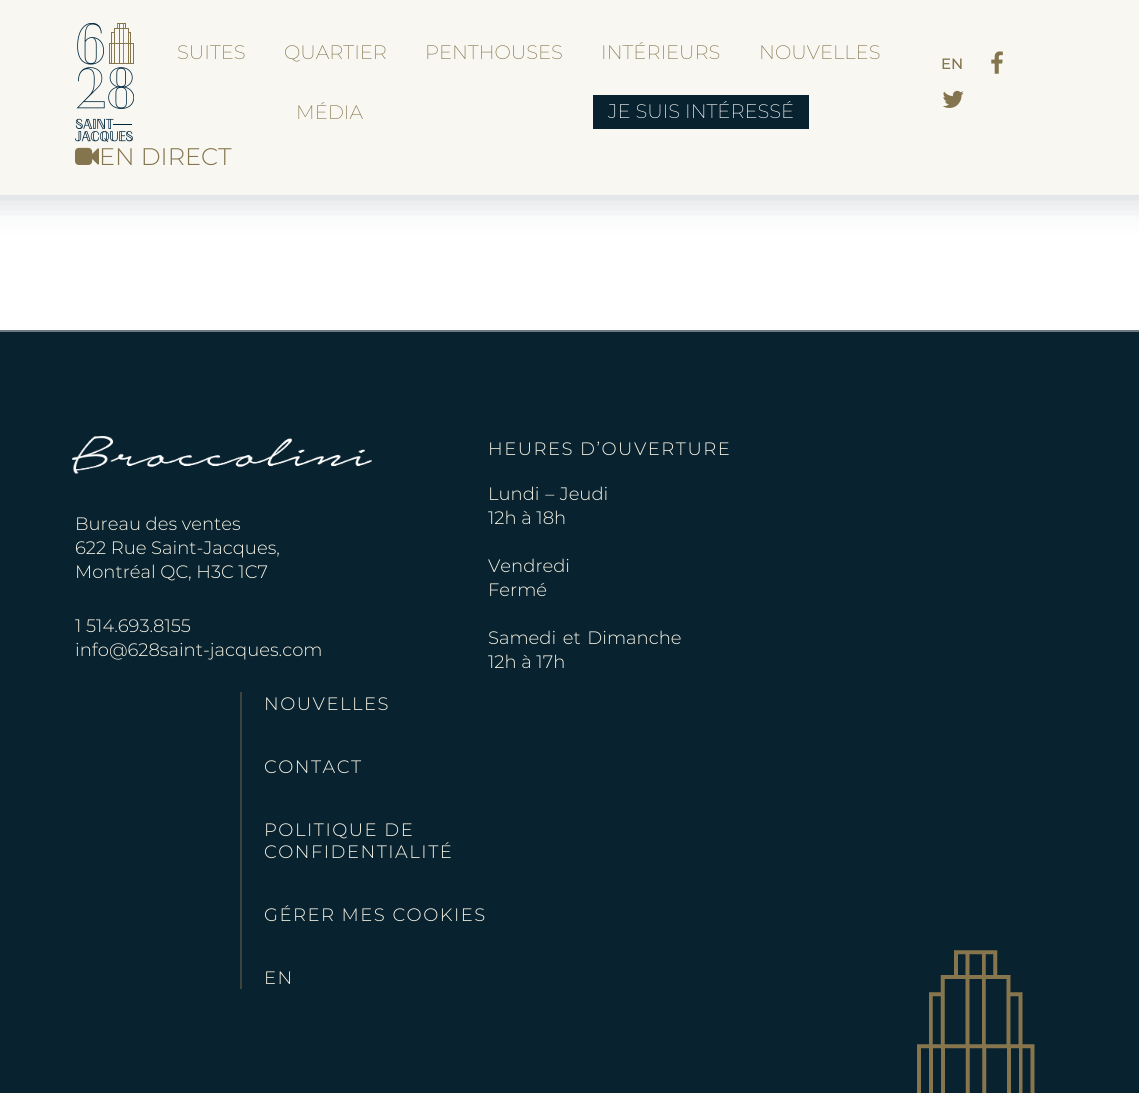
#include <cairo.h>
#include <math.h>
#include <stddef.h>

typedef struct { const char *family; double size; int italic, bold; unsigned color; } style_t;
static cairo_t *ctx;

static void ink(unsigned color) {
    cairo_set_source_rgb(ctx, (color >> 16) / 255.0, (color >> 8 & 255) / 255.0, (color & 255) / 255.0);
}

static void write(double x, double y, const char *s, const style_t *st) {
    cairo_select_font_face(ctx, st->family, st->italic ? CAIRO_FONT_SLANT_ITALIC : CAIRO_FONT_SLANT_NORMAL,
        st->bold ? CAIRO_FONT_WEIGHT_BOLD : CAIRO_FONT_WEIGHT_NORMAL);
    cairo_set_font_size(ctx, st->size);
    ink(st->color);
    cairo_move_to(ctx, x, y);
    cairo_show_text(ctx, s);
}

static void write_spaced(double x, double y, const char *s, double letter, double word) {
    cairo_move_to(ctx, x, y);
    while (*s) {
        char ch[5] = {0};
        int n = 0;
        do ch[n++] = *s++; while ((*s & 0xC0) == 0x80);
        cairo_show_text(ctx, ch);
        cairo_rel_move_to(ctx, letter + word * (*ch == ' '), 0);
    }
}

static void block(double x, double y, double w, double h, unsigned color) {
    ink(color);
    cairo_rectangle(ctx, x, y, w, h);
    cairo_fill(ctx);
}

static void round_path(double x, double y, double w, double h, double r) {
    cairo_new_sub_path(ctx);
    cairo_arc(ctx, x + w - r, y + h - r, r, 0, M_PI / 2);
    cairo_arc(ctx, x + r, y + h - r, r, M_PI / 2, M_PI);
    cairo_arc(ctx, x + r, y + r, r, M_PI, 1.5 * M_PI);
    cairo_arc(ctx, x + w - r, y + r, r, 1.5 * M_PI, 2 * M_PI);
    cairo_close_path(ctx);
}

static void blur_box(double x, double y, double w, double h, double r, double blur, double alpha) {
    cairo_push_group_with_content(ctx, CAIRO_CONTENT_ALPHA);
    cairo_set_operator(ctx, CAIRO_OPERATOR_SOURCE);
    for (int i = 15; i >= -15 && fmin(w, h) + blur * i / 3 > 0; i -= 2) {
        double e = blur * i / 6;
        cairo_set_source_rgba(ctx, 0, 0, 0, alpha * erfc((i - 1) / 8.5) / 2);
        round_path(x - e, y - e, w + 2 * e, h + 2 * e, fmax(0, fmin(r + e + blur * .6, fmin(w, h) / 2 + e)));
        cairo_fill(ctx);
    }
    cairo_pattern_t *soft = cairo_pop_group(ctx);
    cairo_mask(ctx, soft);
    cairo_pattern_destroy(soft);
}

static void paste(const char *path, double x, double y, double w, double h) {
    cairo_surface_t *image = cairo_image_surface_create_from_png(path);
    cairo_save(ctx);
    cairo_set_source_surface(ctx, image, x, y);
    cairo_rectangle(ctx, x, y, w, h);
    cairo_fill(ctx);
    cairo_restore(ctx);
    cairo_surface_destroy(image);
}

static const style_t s1 = {"Montserrat ExtraLight", 19.5, 0, 0, 0x84754e};
static const style_t s2 = {"Montserrat ExtraLight", 19.5, 0, 0, 0xffffff};
static const style_t s3 = {"Montserrat Medium", 15, 0, 0, 0x84754e};
static const style_t s4 = {"Montserrat Light", 24, 0, 0, 0x84754e};
static const style_t s5 = {"Montserrat Light", 18, 0, 0, 0xf6f3e4};

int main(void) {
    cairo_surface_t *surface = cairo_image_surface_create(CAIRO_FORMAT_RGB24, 1139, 1093);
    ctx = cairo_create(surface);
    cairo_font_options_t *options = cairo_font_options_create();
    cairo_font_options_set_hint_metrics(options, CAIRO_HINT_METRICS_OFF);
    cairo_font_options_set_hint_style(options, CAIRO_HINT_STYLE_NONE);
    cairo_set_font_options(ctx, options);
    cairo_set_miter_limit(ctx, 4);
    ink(0xffffff);
    cairo_paint(ctx);
    ink(0x08222f);
    blur_box(-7, -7, 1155, 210, 0, 15, 0.17);
    block(0, 0, 1139, 195, 0xf8f7f1);
    paste("pic1.png", 75, 23, 59, 120);
    write(177, 59, "SUITES", &s1);
    write(284, 59, "QUARTIER", &s1);
    write(425, 59, "PENTHOUSES", &s1);
    write(601, 59, "INTÉRIEURS", &s1);
    write(759, 59, "NOUVELLES", &s1);
    write(296, 119, "MÉDIA", &s1);
    block(593, 95, 216, 34, 0x08222f);
    write(608, 118, "JE SUIS INTÉRESSÉ", &s2);
    write(941, 69, "EN", &s3);
    paste("pic2.png", 991, 51, 12, 23);
    paste("pic3.png", 942, 90, 22, 18);
    paste("pic4.png", 75, 147, 24, 18);
    write(99, 165, "EN DIRECT", &s4);
    block(0, 332, 1139, 761, 0x08222f);
    block(0, 330, 1139, 2, 0x6b7a82);
    paste("pic5.png", 72, 436, 300, 38);
    write(75, 530, "Bureau des ventes", &s5);
    write(75, 554, "622 Rue Saint-Jacques,", &s5);
    write(75, 578, "Montréal QC, H3C 1C7", &s5);
    write(75, 632, "1 514.693.8155", &s5);
    write(75, 656, "info@628saint-jacques.com", &s5);
    write_spaced(488, 455, "HEURES D’OUVERTURE", 1.5, 0);
    write_spaced(488, 500, "Lundi – Jeudi", 0, 1);
    write(488, 524, "12h à 18h", &s5);
    write(488, 572, "Vendredi", &s5);
    write(488, 596, "Fermé", &s5);
    write_spaced(488, 644, "Samedi et Dimanche", 0, 2);
    write(488, 668, "12h à 17h", &s5);
    block(240, 692, 2, 297, 0x3c453c);
    ink(0xf6f3e4);
    write_spaced(264, 710, "NOUVELLES", 1.5, 0);
    write_spaced(264, 773, "CONTACT", 1.5, 0);
    write_spaced(264, 836, "POLITIQUE DE", 1.5, 0);
    write_spaced(264, 858, "CONFIDENTIALITÉ", 1.5, 0);
    write_spaced(264, 921, "GÉRER MES COOKIES", 1.5, 0);
    write_spaced(264, 984, "EN", 1.5, 0);
    paste("pic6.png", 917, 950, 118, 143);
    cairo_surface_write_to_png(surface, "screenshot.png");
    cairo_font_options_destroy(options);
    cairo_destroy(ctx);
    cairo_surface_destroy(surface);
    return 0;
}
